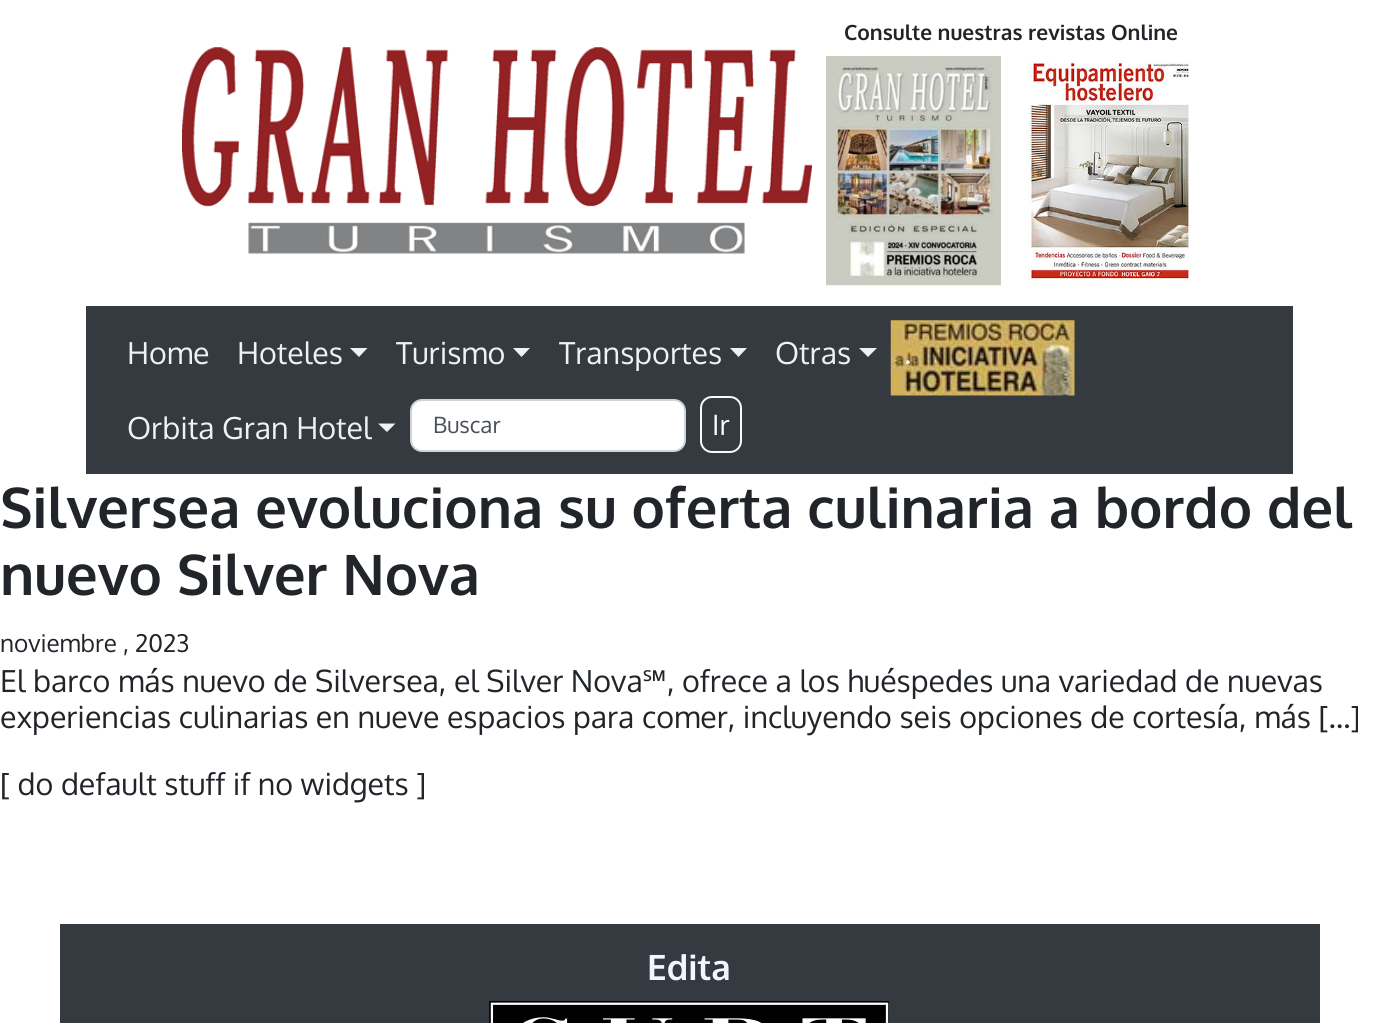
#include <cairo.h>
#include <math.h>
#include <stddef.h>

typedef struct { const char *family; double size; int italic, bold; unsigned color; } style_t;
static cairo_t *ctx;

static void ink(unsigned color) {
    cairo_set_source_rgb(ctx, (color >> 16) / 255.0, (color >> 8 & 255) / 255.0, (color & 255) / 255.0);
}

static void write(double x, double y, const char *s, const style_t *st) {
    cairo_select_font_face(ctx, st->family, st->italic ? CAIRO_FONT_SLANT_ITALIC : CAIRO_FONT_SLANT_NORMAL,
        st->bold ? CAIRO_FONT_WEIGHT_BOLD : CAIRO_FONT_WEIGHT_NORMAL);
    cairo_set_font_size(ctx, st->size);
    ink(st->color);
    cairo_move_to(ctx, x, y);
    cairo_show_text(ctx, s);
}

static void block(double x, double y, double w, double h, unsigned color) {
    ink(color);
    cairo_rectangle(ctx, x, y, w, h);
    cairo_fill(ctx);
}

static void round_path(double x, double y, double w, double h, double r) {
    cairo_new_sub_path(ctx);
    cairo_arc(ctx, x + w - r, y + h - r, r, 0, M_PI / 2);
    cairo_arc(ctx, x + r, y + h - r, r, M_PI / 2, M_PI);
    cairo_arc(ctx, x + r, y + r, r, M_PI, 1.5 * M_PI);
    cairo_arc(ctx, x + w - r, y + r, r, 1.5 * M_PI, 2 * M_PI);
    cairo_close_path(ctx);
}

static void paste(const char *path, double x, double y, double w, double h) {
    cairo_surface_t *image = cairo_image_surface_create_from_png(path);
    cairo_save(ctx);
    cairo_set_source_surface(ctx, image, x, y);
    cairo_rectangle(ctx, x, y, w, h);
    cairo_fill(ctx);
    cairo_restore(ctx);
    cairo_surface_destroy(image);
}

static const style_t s1 = {"Oxygen", 21, 0, 1, 0x212529};
static const style_t s2 = {"Oxygen", 30.35, 0, 0, 0xeef2f5};
static const style_t s3 = {"Oxygen", 22.5, 0, 0, 0x495057};
static const style_t s4 = {"Oxygen", 28, 0, 0, 0xf8f9fa};
static const style_t s5 = {"Oxygen", 56, 0, 1, 0x212529};
static const style_t s6 = {"Oxygen", 24.25, 0, 0, 0x212529};
static const style_t s7 = {"Oxygen", 30.35, 0, 0, 0x212529};
static const style_t s8 = {"Noto Sans", 30.35, 0, 0, 0x212529};
static const style_t s9 = {"Oxygen", 35, 0, 1, 0xf0f8ff};

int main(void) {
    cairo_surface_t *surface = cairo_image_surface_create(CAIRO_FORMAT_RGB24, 1376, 1023);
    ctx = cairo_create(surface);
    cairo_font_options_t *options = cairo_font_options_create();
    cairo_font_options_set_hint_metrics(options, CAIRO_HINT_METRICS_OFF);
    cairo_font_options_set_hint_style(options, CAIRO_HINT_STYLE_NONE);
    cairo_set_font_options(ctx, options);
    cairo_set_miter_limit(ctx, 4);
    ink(0xffffff);
    cairo_paint(ctx);
    write(844, 40, "Consulte nuestras revistas Online", &s1);
    paste("pic1.png", 826, 56, 175, 230);
    paste("pic2.png", 1027, 61, 162, 222);
    paste("pic3.png", 182, 47, 630, 207);
    block(86, 306, 1207, 168, 0x343a40);
    write(127, 364, "Home", &s2);
    write(237, 364, "Hoteles", &s2);
    cairo_new_path(ctx);
    cairo_move_to(ctx, 350, 348);
    cairo_line_to(ctx, 367.5, 348);
    cairo_line_to(ctx, 359, 357);
    cairo_close_path(ctx);
    cairo_fill(ctx);
    write(396, 364, "Turismo", &s2);
    cairo_new_path(ctx);
    cairo_move_to(ctx, 513, 348);
    cairo_line_to(ctx, 530, 348);
    cairo_line_to(ctx, 521.5, 357);
    cairo_close_path(ctx);
    cairo_fill(ctx);
    write(559, 364, "Transportes", &s2);
    cairo_new_path(ctx);
    cairo_move_to(ctx, 730, 348);
    cairo_line_to(ctx, 747, 348);
    cairo_line_to(ctx, 738.5, 357);
    cairo_close_path(ctx);
    cairo_fill(ctx);
    write(775, 364, "Otras", &s2);
    cairo_new_path(ctx);
    cairo_move_to(ctx, 859, 348);
    cairo_line_to(ctx, 877, 348);
    cairo_line_to(ctx, 868, 357);
    cairo_close_path(ctx);
    cairo_fill(ctx);
    paste("pic4.png", 890, 320, 185, 76);
    write(904, 364, ".", &s2);
    write(127, 439, "Orbita Gran Hotel", &s2);
    cairo_new_path(ctx);
    cairo_move_to(ctx, 378, 423.5);
    cairo_line_to(ctx, 395.5, 423.5);
    cairo_line_to(ctx, 387, 432);
    cairo_close_path(ctx);
    cairo_fill(ctx);
    ink(0xffffff);
    round_path(411, 400, 274, 51, 11);
    cairo_fill_preserve(ctx);
    ink(0xced4da);
    cairo_stroke(ctx);
    write(433, 433, "Buscar", &s3);
    round_path(701, 397, 40, 55, 11);
    ink(0xf8f9fa);
    cairo_stroke(ctx);
    write(712, 435, "Ir", &s4);
    write(0, 528, "Silversea evoluciona su oferta culinaria a bordo del", &s5);
    write(0, 595, "nuevo Silver Nova", &s5);
    write(0, 652, "noviembre , 2023", &s6);
    write(0, 692, "El barco más nuevo de Silversea, el Silver Nova", &s7);
    write(642, 692, "℠", &s8);
    write(667, 692, ", ofrece a los huéspedes una variedad de nuevas", &s7);
    write(0, 728, "experiencias culinarias en nueve espacios para comer, incluyendo seis opciones de cortesía, más […]", &s7);
    write(0, 795, "[ do default stuff if no widgets ]", &s7);
    block(60, 924, 1260, 99, 0x343a40);
    write(647, 980, "Edita", &s9);
    paste("pic5.png", 489, 1001, 400, 22);
    cairo_surface_write_to_png(surface, "screenshot.png");
    cairo_font_options_destroy(options);
    cairo_destroy(ctx);
    cairo_surface_destroy(surface);
    return 0;
}
